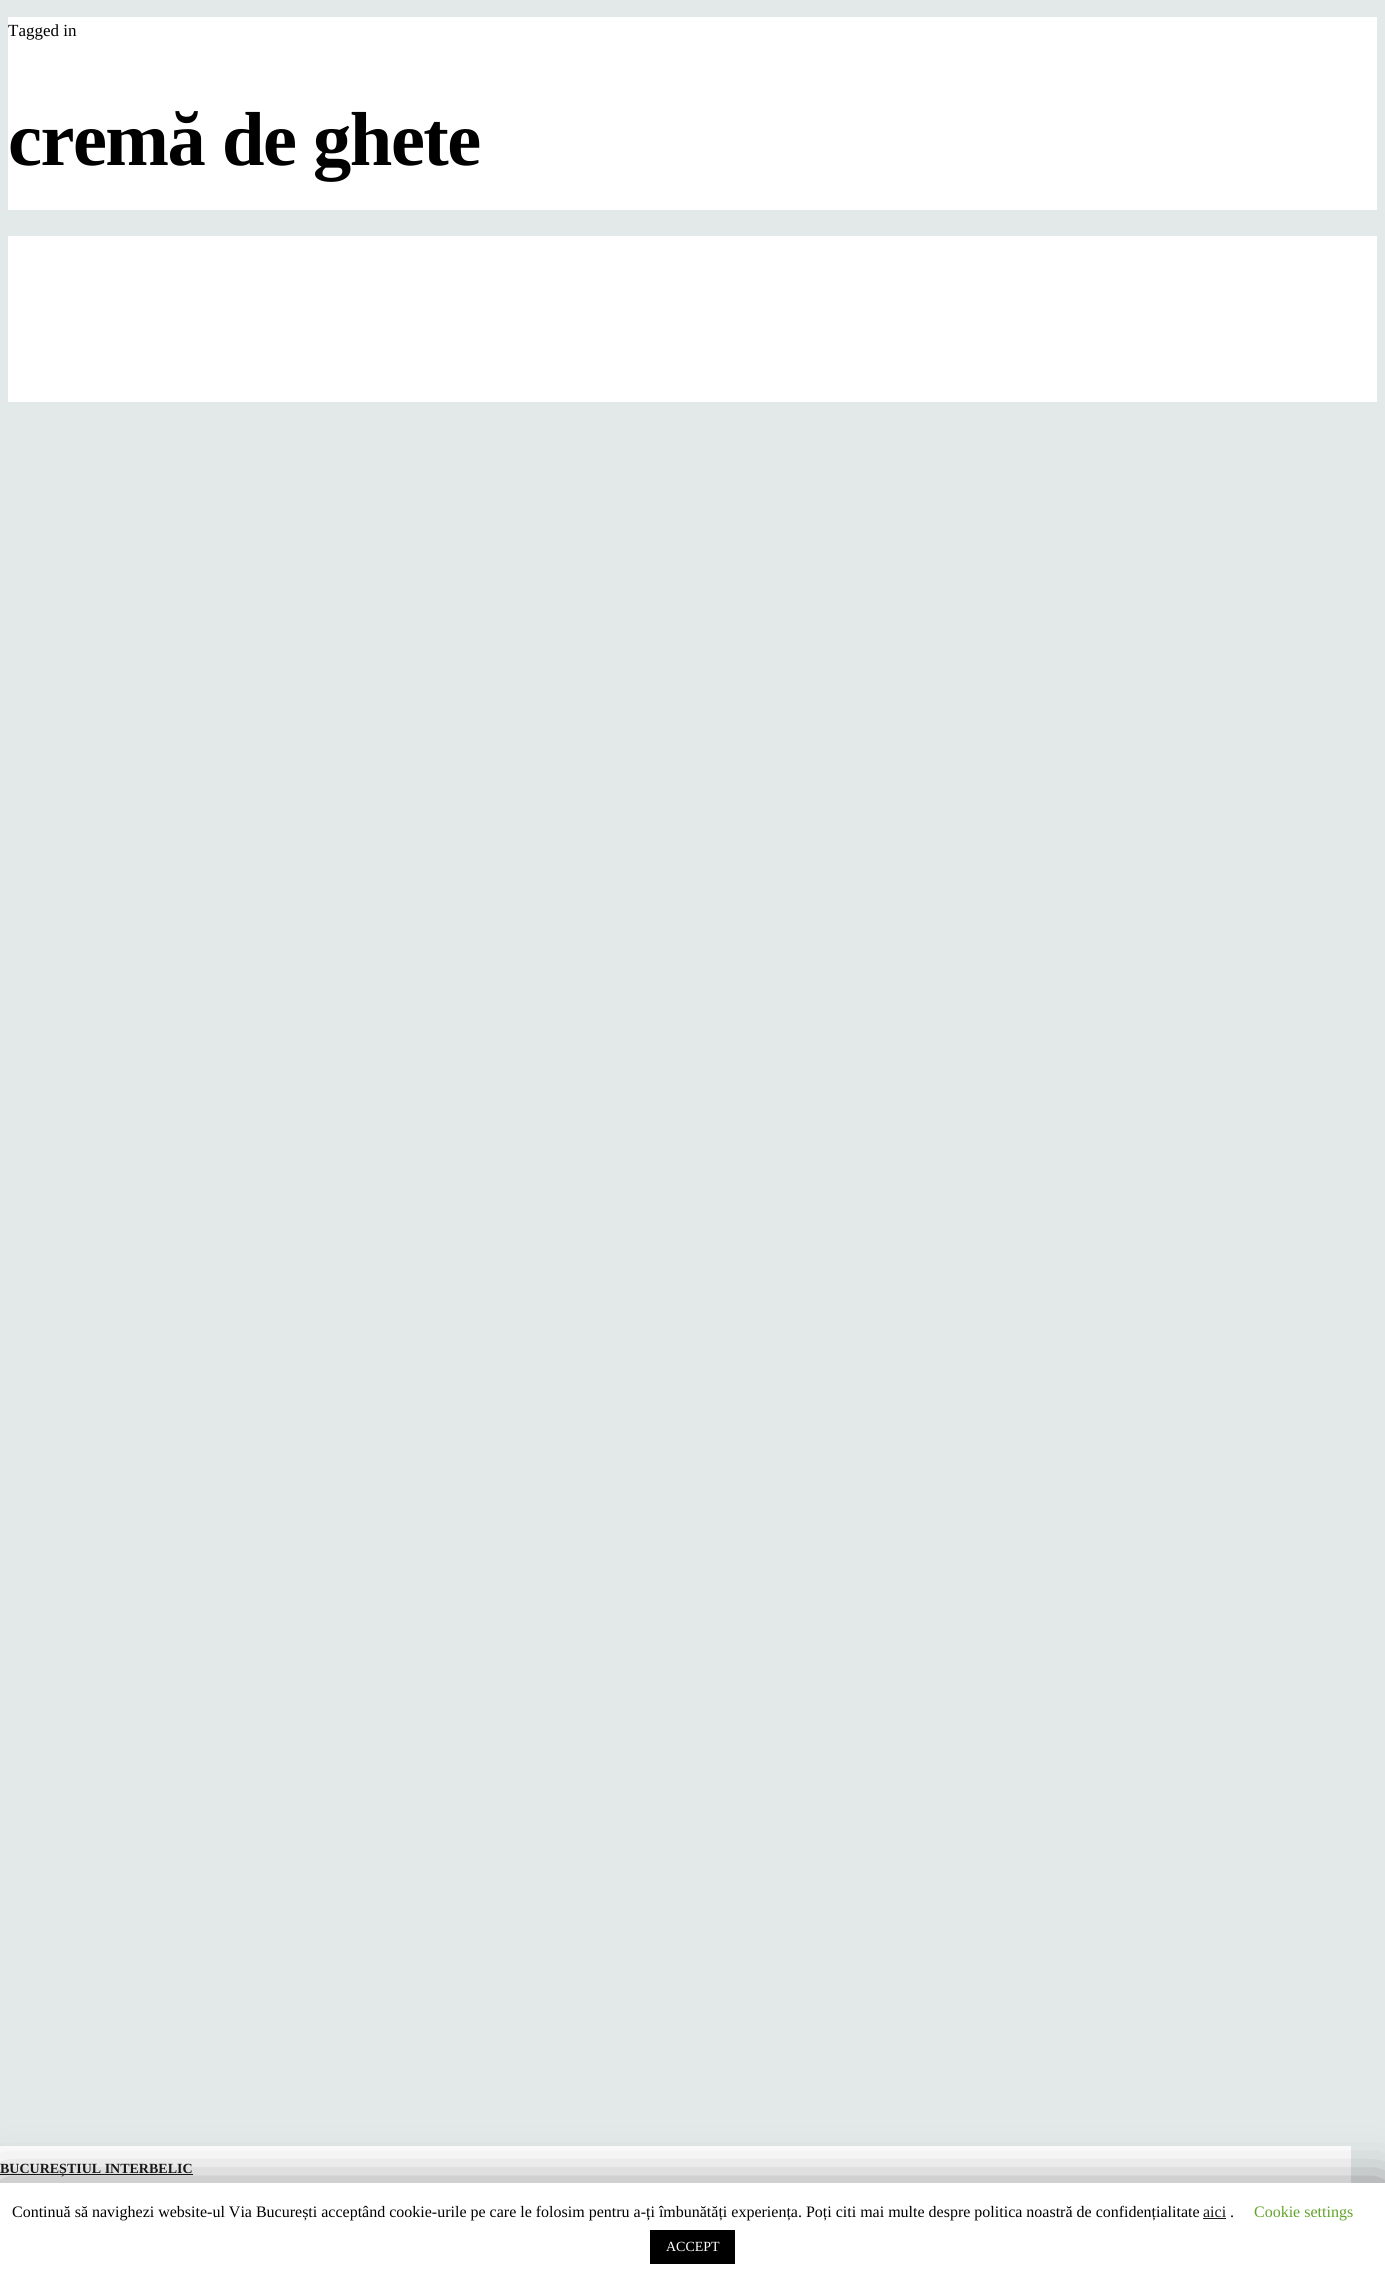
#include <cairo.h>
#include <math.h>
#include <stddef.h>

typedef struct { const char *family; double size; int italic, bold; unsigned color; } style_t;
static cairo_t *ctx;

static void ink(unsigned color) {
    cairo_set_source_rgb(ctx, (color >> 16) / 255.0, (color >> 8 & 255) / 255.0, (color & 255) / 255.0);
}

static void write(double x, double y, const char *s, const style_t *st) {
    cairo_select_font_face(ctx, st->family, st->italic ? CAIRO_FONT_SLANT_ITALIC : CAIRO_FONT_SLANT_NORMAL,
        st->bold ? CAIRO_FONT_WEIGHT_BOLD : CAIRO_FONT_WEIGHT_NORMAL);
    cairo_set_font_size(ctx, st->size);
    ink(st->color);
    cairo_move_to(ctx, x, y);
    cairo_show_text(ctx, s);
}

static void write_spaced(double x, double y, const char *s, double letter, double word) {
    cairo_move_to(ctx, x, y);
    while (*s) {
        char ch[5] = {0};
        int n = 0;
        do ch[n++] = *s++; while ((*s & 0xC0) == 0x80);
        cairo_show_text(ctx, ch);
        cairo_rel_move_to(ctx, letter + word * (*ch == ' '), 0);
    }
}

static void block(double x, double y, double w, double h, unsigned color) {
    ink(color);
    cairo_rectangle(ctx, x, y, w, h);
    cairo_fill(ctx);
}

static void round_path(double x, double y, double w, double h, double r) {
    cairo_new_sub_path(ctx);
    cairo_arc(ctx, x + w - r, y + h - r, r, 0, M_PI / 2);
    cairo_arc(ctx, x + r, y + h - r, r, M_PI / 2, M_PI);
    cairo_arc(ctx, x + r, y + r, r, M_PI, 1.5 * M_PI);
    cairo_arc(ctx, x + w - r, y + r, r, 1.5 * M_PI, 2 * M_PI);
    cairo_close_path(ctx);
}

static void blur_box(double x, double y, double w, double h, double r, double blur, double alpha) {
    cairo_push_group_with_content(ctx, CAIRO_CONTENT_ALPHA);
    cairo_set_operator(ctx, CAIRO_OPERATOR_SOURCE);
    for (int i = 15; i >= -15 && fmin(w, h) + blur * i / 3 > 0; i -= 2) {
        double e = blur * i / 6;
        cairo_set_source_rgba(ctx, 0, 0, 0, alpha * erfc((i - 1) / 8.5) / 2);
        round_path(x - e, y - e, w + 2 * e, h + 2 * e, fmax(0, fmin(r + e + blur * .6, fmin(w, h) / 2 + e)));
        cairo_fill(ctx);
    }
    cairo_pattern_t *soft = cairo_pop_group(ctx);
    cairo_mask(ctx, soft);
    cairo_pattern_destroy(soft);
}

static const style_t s1 = {"Liberation Serif", 17, 0, 0, 0x000000};
static const style_t s2 = {"Liberation Serif", 14, 0, 1, 0x1a1a1a};
static const style_t s3 = {"Liberation Serif", 16, 0, 0, 0x000000};
static const style_t s4 = {"Liberation Serif", 16, 0, 0, 0x1a1a1a};
static const style_t s5 = {"Liberation Serif", 16, 0, 0, 0x62a329};
static const style_t s6 = {"Liberation Serif", 14, 0, 0, 0xffffff};

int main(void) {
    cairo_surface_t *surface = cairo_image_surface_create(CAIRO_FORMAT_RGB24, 1385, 2282);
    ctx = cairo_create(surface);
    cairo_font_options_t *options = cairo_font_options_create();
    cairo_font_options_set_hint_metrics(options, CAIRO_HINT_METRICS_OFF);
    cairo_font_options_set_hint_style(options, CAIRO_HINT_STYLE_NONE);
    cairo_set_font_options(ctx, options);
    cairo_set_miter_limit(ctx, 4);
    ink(0xe3e8e8);
    cairo_paint(ctx);
    block(8, 17, 1369, 193, 0xffffff);
    write(8, 36, "Tagged in", &s1);
    cairo_select_font_face(ctx, "Liberation Serif", CAIRO_FONT_SLANT_NORMAL, CAIRO_FONT_WEIGHT_BOLD);
    cairo_set_font_size(ctx, 76.5);
    write_spaced(8, 165, "cremă de ghete", -1.5, 0);
    block(0, 2146, 1351, 37, 0xffffff);
    block(0, 2174, 193, 1, 0x1a1a1a);
    write(0, 2173, "BUCUREȘTIUL INTERBELIC", &s2);
    block(8, 236, 1369, 166, 0xffffff);
    ink(0x000000);
    blur_box(0, 2188, 1385, 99, 0, 25, 0.5);
    block(0, 2183, 1385, 99, 0xffffff);
    write(12, 2217, "Continuă să navighezi website-ul Via București acceptând cookie-urile pe care le folosim pentru a-ți îmbunătăți experiența. Poți citi mai multe despre politica noastră de confidențialitate", &s3);
    write(1203, 2217, "aici", &s4);
    block(1203, 2218, 23, 1, 0x1a1a1a);
    write(1230, 2217, ".", &s3);
    write(1254, 2217, "Cookie settings", &s5);
    block(650, 2230, 85, 34, 0x000000);
    write(666, 2251, "ACCEPT", &s6);
    cairo_surface_write_to_png(surface, "screenshot.png");
    cairo_font_options_destroy(options);
    cairo_destroy(ctx);
    cairo_surface_destroy(surface);
    return 0;
}
